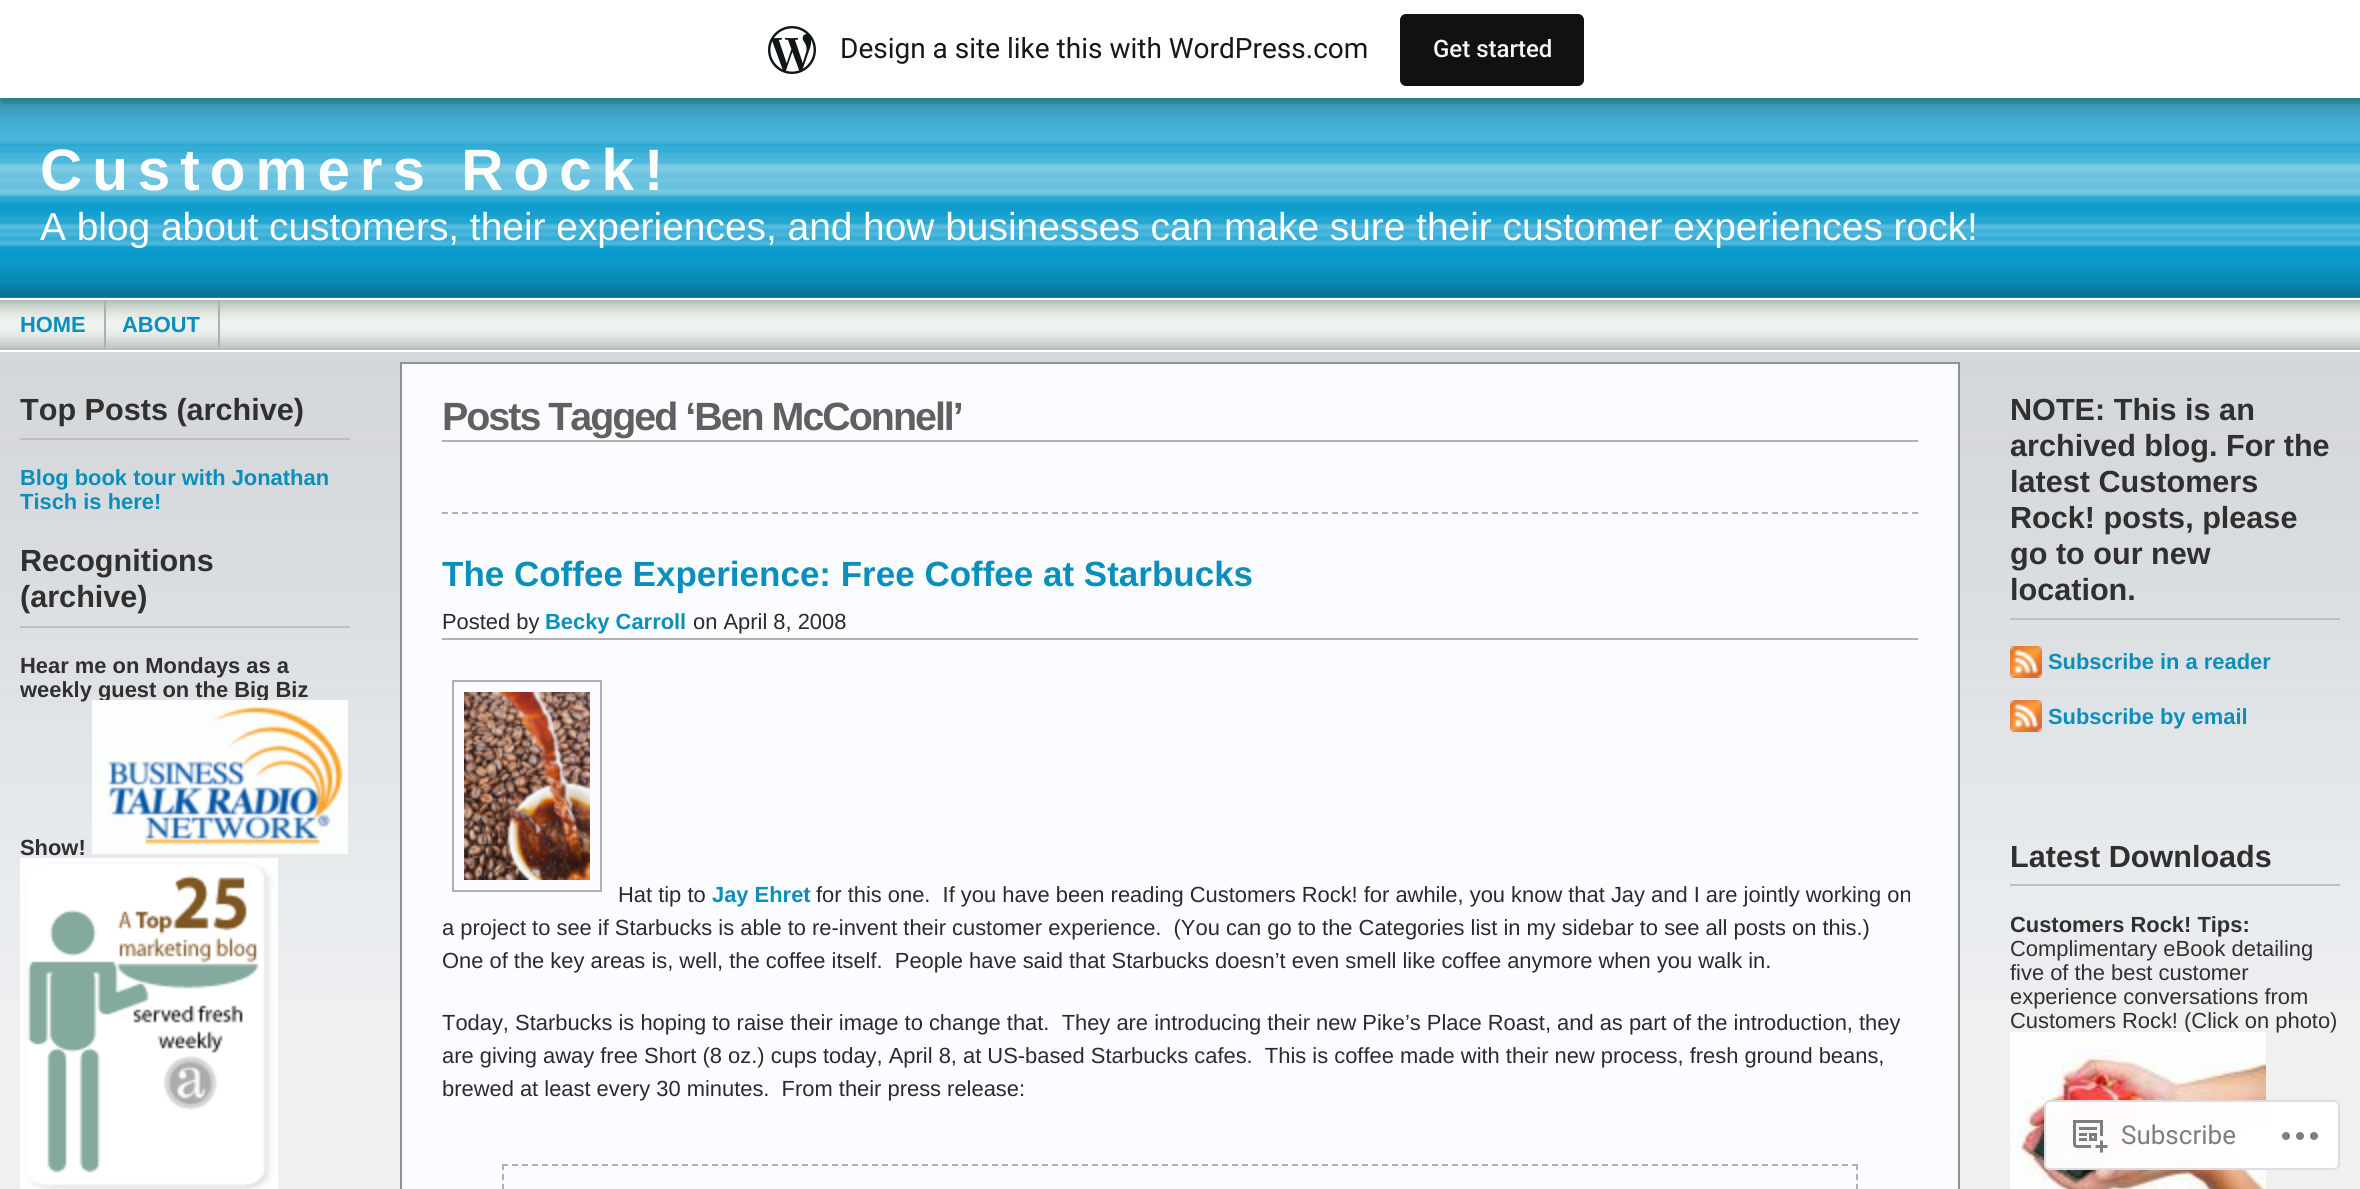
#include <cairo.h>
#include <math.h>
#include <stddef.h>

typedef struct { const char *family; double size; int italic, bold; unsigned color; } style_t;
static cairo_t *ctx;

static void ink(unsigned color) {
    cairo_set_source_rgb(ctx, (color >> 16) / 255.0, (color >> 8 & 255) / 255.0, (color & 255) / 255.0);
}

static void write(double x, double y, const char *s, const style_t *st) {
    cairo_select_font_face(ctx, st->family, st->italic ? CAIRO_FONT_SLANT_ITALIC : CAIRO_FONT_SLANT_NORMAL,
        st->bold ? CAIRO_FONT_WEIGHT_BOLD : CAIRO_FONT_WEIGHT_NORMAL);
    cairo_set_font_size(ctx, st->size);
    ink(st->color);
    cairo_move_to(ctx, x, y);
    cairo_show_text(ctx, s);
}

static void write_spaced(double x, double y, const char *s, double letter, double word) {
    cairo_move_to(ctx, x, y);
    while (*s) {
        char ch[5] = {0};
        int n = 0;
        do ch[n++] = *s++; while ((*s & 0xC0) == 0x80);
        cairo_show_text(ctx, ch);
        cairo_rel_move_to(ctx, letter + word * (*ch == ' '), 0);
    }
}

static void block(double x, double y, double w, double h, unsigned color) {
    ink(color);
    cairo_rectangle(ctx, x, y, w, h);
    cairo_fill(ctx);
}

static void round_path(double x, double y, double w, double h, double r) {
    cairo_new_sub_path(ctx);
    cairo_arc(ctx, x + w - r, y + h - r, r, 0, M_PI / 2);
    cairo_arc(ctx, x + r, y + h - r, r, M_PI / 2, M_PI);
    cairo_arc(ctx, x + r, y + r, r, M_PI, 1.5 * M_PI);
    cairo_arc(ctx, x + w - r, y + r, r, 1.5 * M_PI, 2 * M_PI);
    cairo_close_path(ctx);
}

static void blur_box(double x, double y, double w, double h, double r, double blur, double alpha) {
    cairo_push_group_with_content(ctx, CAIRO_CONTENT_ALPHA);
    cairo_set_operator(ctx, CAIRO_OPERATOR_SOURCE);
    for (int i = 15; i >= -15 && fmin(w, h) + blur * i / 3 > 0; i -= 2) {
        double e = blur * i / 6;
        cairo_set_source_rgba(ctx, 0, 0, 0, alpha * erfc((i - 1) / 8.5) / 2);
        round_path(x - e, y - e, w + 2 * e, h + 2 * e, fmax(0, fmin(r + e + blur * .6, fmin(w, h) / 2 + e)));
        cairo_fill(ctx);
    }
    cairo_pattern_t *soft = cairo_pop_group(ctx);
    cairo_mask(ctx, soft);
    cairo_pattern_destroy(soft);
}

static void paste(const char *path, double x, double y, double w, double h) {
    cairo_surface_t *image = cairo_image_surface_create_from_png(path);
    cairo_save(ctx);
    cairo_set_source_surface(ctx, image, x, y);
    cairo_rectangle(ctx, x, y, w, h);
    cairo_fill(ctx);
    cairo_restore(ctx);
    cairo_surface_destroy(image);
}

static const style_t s1 = {"Roboto", 28, 0, 0, 0x171717};
static const style_t s2 = {"Roboto Medium", 24, 0, 0, 0xf6f7f7};
static const style_t s3 = {"Liberation Sans", 21.9, 0, 1, 0x0a8fbc};
static const style_t s4 = {"Liberation Sans", 30.6, 0, 1, 0x303030};
static const style_t s5 = {"Liberation Sans", 21.9, 0, 1, 0x303030};
static const style_t s6 = {"Liberation Sans", 35, 0, 1, 0x0a8fbc};
static const style_t s7 = {"Liberation Sans", 21.9, 0, 0, 0x2a2a2a};
static const style_t s8 = {"Liberation Sans", 21.9, 0, 0, 0x303030};
static const style_t s9 = {"Roboto", 26, 0, 0, 0x7b7f84};

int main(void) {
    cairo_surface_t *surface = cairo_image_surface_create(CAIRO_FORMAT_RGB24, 2360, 1189);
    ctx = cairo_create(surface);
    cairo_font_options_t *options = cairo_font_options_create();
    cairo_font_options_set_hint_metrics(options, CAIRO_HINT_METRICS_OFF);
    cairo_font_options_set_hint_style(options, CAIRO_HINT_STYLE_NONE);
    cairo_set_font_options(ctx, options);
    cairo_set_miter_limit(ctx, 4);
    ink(0xf0f0f0);
    cairo_paint(ctx);
    paste("pic2.png", 0, 98, 2360, 902);
    ink(0x000000);
    blur_box(0, 2, 2360, 98, 0, 2, 0.05);
    cairo_set_source_rgba(ctx, 0, 0, 0, 0.08);
    cairo_new_path(ctx);
    cairo_move_to(ctx, 2, 98);
    cairo_line_to(ctx, 2, 104);
    cairo_line_to(ctx, 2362, 104);
    cairo_line_to(ctx, 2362, 6);
    cairo_line_to(ctx, 2360, 6);
    cairo_line_to(ctx, 2360, 98);
    cairo_close_path(ctx);
    cairo_fill(ctx);
    block(0, 0, 2360, 98, 0xffffff);
    paste("pic1.png", 768, 26, 48, 48);
    write(840, 58, "Design a site like this with WordPress.com", &s1);
    ink(0x111111);
    round_path(1400, 14, 184, 72, 6);
    cairo_fill(ctx);
    write(1433, 57, "Get started", &s2);
    cairo_select_font_face(ctx, "Liberation Sans", CAIRO_FONT_SLANT_NORMAL, CAIRO_FONT_WEIGHT_BOLD);
    cairo_set_font_size(ctx, 58.4);
    ink(0xffffff);
    write_spaced(40, 190, "Customers Rock!", 10, 0);
    cairo_select_font_face(ctx, "Liberation Sans", CAIRO_FONT_SLANT_NORMAL, CAIRO_FONT_WEIGHT_NORMAL);
    cairo_set_font_size(ctx, 38.9);
    write_spaced(40, 240, "A blog about customers, their experiences, and how businesses can make sure their customer experiences rock!", 0, -0.1);
    paste("pic3.png", 0, 300, 2360, 50);
    block(0, 298, 2360, 2, 0xffffff);
    block(0, 350, 2360, 2, 0xffffff);
    write(20, 332, "HOME", &s3);
    block(104, 300, 2, 48, 0xb0b0b0);
    write(122, 332, "ABOUT", &s3);
    block(218, 300, 2, 48, 0xb0b0b0);
    block(20, 438, 330, 2, 0xbebfc3);
    write(20, 420, "Top Posts (archive)", &s4);
    write(20, 485, "Blog book tour with Jonathan", &s3);
    write(20, 509, "Tisch is here!", &s3);
    block(20, 626, 330, 2, 0xbebfc3);
    write(20, 571, "Recognitions", &s4);
    write(20, 607, "(archive)", &s4);
    write(20, 673, "Hear me on Mondays as a", &s5);
    write(20, 697, "weekly guest on the Big Biz", &s5);
    write(20, 855, "Show!", &s5);
    paste("pic4.png", 92, 700, 256, 154);
    paste("pic5.png", 20, 858, 258, 331);
    ink(0xfafcff);
    cairo_rectangle(ctx, 401, 363, 1558, 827);
    cairo_fill_preserve(ctx);
    ink(0x909090);
    cairo_stroke(ctx);
    block(442, 440, 1476, 2, 0xb0b0b0);
    cairo_set_font_size(ctx, 39.4);
    ink(0x606060);
    write_spaced(442, 430, "Posts Tagged ‘Ben McConnell’", -2, 0);
    cairo_new_path(ctx);
    cairo_move_to(ctx, 442, 513);
    cairo_line_to(ctx, 1918, 513);
    ink(0xb0b0b0);
    cairo_set_dash(ctx, (double[]){6, 4}, 2, 0);
    cairo_stroke(ctx);
    write(442, 586, "The Coffee Experience: Free Coffee at Starbucks", &s6);
    block(442, 638, 1476, 2, 0xb0b0b0);
    write(442, 629, "Posted by", &s7);
    write(545, 629, "Becky Carroll", &s3);
    write(693, 629, "on April 8, 2008", &s7);
    cairo_rectangle(ctx, 453, 681, 148, 210);
    ink(0xb0b0b0);
    cairo_set_dash(ctx, NULL, 0, 0);
    cairo_stroke(ctx);
    paste("pic6.png", 464, 692, 126, 188);
    write(618, 902, "Hat tip to", &s7);
    write(712, 902, "Jay Ehret", &s3);
    write(816, 902, "for this one.  If you have been reading Customers Rock! for awhile, you know that Jay and I are jointly working on", &s7);
    write(442, 935, "a project to see if Starbucks is able to re-invent their customer experience.  (You can go to the Categories list in my sidebar to see all posts on this.)", &s7);
    write(442, 968, "One of the key areas is, well, the coffee itself.  People have said that Starbucks doesn’t even smell like coffee anymore when you walk in.", &s7);
    write(442, 1030, "Today, Starbucks is hoping to raise their image to change that.  They are introducing their new Pike’s Place Roast, and as part of the introduction, they", &s7);
    write(442, 1063, "are giving away free Short (8 oz.) cups today, April 8, at US-based Starbucks cafes.  This is coffee made with their new process, fresh ground beans,", &s7);
    write(442, 1096, "brewed at least every 30 minutes.  From their press release:", &s7);
    cairo_new_path(ctx);
    cairo_move_to(ctx, 502, 1165);
    cairo_line_to(ctx, 1858, 1165);
    ink(0xb0b0b0);
    cairo_set_dash(ctx, (double[]){6, 4}, 2, 0);
    cairo_stroke(ctx);
    cairo_new_path(ctx);
    cairo_move_to(ctx, 1857, 1164);
    cairo_line_to(ctx, 1857, 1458);
    cairo_set_dash(ctx, (double[]){6, 3.94}, 2, 0);
    cairo_stroke(ctx);
    cairo_new_path(ctx);
    cairo_move_to(ctx, 503, 1164);
    cairo_line_to(ctx, 503, 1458);
    cairo_stroke(ctx);
    block(2010, 618, 330, 2, 0xbebfc3);
    write(2010, 420, "NOTE: This is an", &s4);
    write(2010, 456, "archived blog. For the", &s4);
    write(2010, 492, "latest Customers", &s4);
    write(2010, 528, "Rock! posts, please", &s4);
    write(2010, 564, "go to our new", &s4);
    write(2010, 600, "location.", &s4);
    paste("pic7.png", 2010, 646, 32, 32);
    write(2048, 669, "Subscribe in a reader", &s3);
    paste("pic8.png", 2010, 700, 32, 32);
    write(2048, 724, "Subscribe by email", &s3);
    block(2010, 884, 330, 2, 0xbebfc3);
    write(2010, 867, "Latest Downloads", &s4);
    write(2010, 932, "Customers Rock! Tips:", &s5);
    write(2010, 956, "Complimentary eBook detailing", &s8);
    write(2010, 980, "five of the best customer", &s8);
    write(2010, 1004, "experience conversations from", &s8);
    write(2010, 1028, "Customers Rock! (Click on photo)", &s8);
    paste("pic9.png", 2010, 1032, 256, 157);
    cairo_set_source_rgba(ctx, 1, 1, 1, 0.98);
    round_path(2044, 1100, 296, 70, 6);
    cairo_fill(ctx);
    round_path(2045, 1101, 294, 68, 5);
    cairo_set_source_rgba(ctx, 0.863, 0.863, 0.871, 0.98);
    cairo_set_dash(ctx, NULL, 0, 0);
    cairo_stroke(ctx);
    paste("pic10.png", 2073, 1120, 35, 33);
    write(2121, 1144, "Subscribe", &s9);
    paste("pic11.png", 2282, 1132, 36, 8);
    cairo_surface_write_to_png(surface, "screenshot.png");
    cairo_font_options_destroy(options);
    cairo_destroy(ctx);
    cairo_surface_destroy(surface);
    return 0;
}
